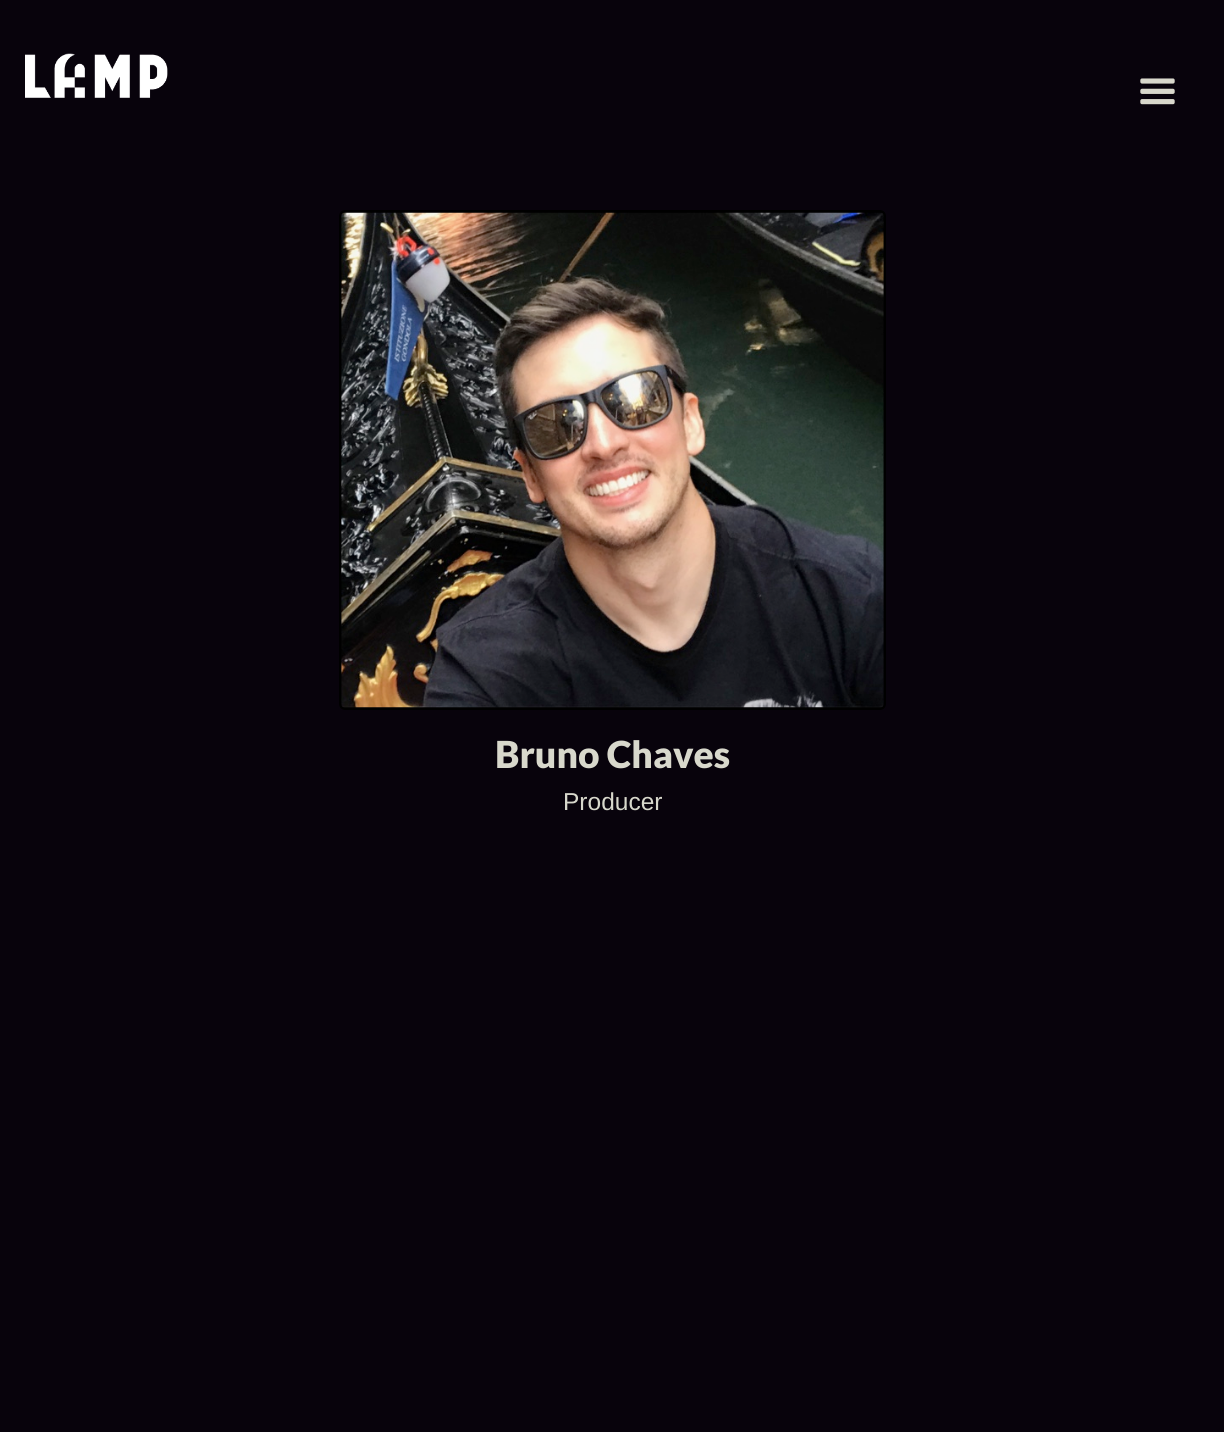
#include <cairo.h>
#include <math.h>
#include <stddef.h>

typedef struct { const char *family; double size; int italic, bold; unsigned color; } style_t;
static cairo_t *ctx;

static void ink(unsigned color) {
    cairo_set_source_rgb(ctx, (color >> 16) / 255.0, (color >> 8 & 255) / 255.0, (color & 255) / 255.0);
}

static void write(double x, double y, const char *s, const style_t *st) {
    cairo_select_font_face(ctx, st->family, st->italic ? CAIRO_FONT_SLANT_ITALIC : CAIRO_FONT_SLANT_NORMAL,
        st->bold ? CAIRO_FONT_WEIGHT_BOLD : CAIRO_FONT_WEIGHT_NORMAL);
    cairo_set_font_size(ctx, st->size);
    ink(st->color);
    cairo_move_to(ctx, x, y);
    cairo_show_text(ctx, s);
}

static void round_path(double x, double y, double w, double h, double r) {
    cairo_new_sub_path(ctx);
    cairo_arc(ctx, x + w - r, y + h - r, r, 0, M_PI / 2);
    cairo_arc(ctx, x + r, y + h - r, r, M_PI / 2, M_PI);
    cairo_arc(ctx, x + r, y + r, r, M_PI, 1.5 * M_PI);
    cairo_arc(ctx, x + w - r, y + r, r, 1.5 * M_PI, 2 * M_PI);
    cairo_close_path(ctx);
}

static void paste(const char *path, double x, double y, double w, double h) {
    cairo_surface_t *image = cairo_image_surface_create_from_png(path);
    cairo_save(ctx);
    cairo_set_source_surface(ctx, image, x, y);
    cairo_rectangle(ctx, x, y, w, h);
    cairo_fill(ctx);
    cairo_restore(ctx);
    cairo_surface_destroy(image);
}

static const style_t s1 = {"Lato Black", 37.25, 0, 0, 0xd8d8cc};
static const style_t s2 = {"Liberation Sans", 24.5, 0, 0, 0xd8d8cc};

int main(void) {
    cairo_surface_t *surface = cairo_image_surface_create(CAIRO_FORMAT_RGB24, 1224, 1432);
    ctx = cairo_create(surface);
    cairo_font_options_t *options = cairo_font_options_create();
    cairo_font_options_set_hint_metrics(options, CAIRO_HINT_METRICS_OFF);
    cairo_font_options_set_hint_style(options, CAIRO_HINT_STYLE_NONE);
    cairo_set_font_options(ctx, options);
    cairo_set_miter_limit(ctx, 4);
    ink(0x08030c);
    cairo_paint(ctx);
    paste("pic1.png", 25, 53, 143, 45);
    paste("pic2.png", 1140, 78, 35, 27);
    round_path(340.5, 211.5, 544, 497, 4.5);
    ink(0x000000);
    cairo_set_line_width(ctx, 3);
    cairo_stroke(ctx);
    paste("pic3.png", 341, 212, 543, 496);
    write(495, 768, "Bruno Chaves", &s1);
    write(563, 810, "Producer", &s2);
    cairo_surface_write_to_png(surface, "screenshot.png");
    cairo_font_options_destroy(options);
    cairo_destroy(ctx);
    cairo_surface_destroy(surface);
    return 0;
}
